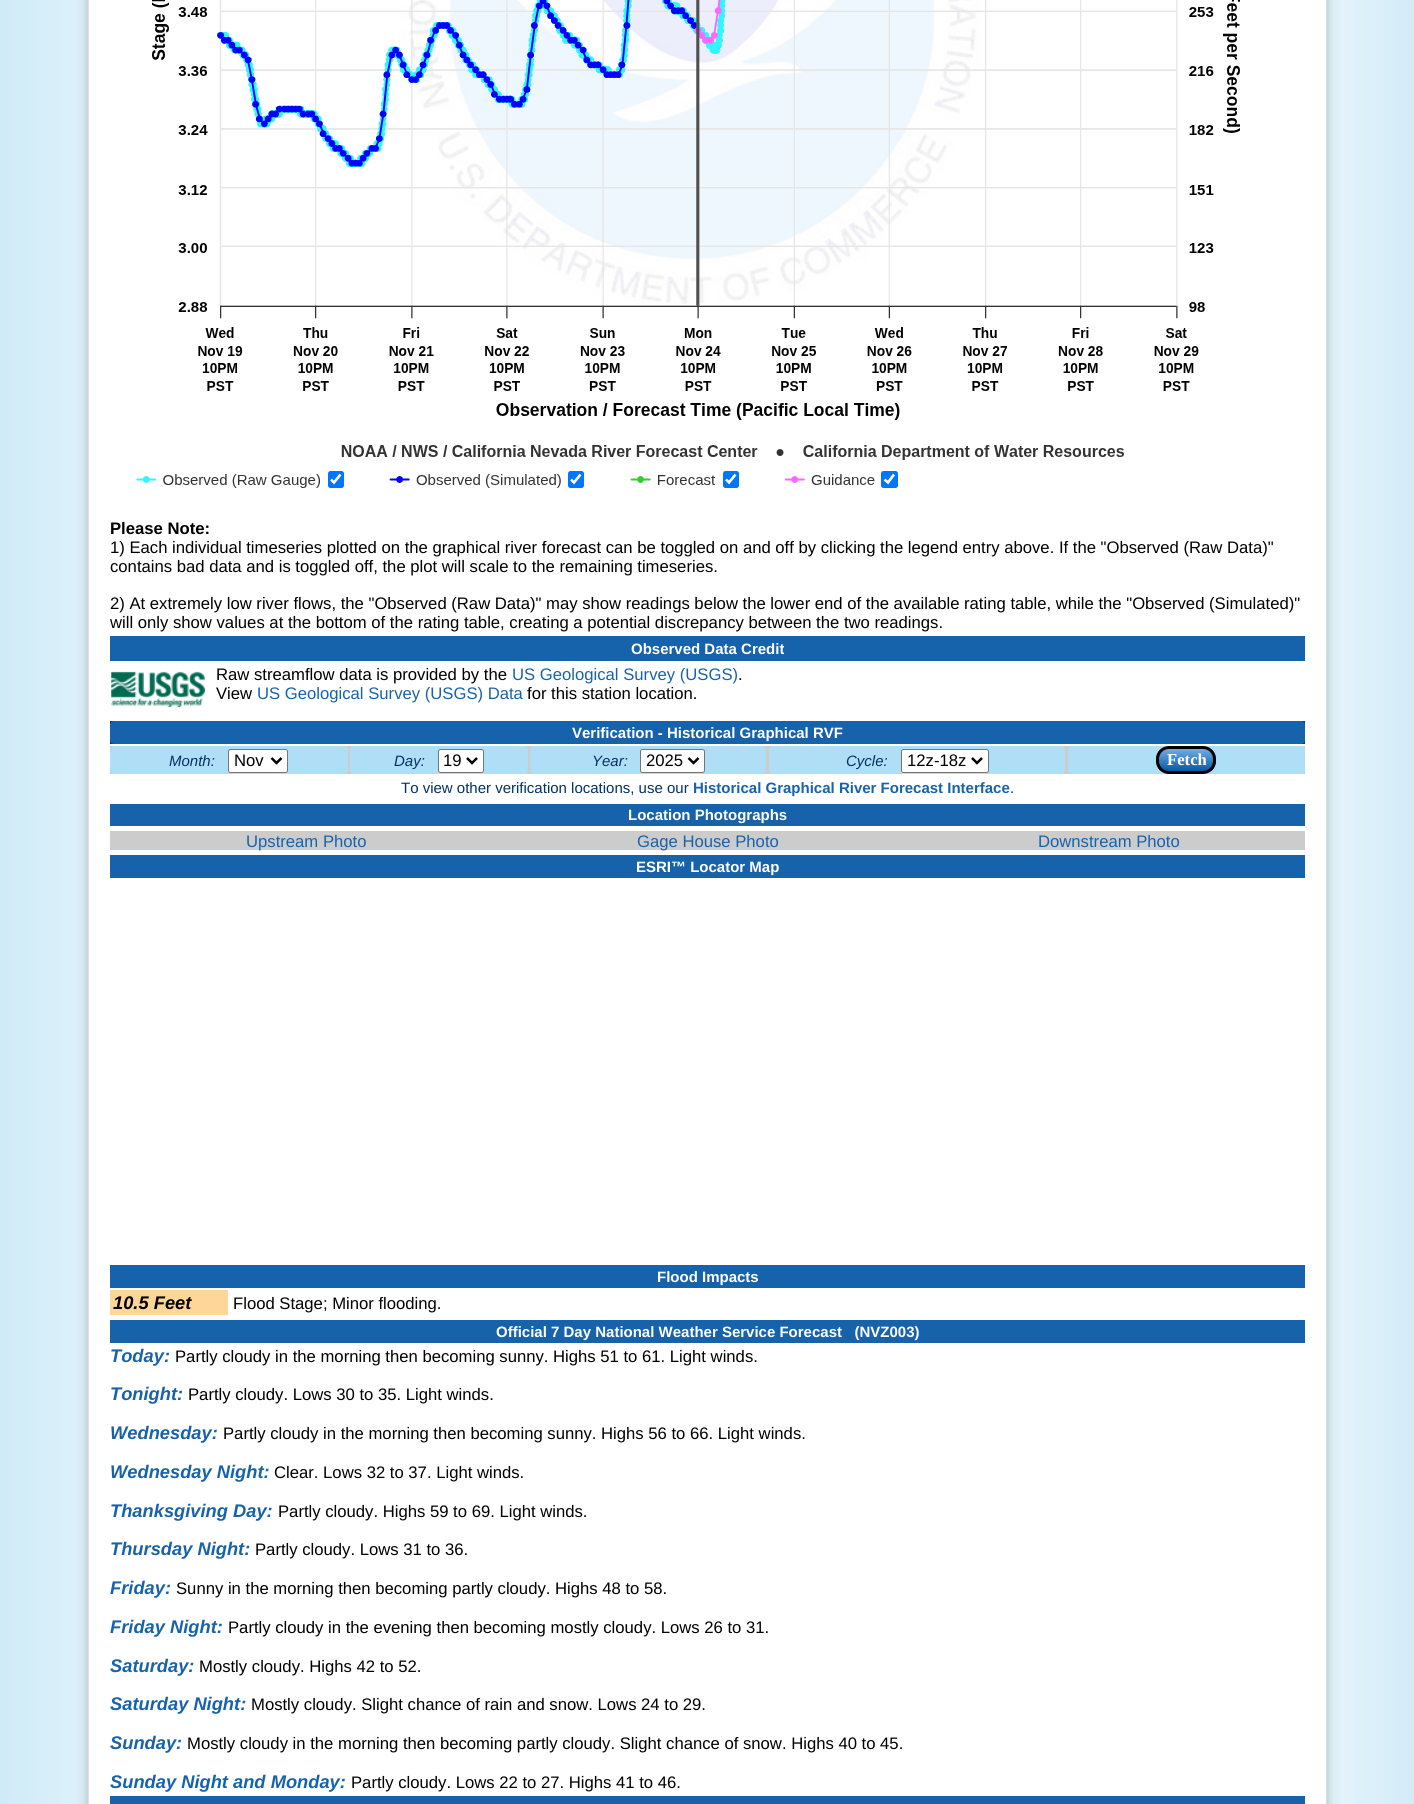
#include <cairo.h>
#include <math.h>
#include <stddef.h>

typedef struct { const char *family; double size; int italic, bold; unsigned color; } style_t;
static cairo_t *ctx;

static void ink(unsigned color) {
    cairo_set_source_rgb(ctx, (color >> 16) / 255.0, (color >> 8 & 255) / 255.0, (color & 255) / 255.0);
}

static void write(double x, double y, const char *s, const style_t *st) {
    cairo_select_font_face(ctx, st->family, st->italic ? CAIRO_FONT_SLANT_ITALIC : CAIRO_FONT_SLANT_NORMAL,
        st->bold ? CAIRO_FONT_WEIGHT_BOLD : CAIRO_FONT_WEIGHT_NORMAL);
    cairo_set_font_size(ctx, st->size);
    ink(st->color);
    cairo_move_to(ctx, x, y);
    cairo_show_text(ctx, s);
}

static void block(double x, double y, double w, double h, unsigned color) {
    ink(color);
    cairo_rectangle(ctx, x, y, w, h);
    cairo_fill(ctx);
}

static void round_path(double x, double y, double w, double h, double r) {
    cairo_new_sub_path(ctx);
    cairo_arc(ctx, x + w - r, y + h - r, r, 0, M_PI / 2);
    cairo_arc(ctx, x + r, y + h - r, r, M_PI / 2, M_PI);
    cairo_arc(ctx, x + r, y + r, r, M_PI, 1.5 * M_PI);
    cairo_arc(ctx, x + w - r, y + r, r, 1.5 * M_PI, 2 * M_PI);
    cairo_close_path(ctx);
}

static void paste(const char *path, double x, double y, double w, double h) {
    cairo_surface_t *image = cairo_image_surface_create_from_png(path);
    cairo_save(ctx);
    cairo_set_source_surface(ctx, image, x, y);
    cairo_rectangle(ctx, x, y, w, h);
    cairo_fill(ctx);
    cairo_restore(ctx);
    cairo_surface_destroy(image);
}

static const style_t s1 = {"Liberation Sans", 16.67, 0, 1, 0x000000};
static const style_t s2 = {"Liberation Sans", 16.67, 0, 0, 0x000000};
static const style_t s3 = {"Liberation Sans", 15, 0, 1, 0xffffff};
static const style_t s4 = {"Liberation Sans", 16.67, 0, 0, 0x1763ab};
static const style_t s5 = {"Liberation Sans", 15, 1, 0, 0x003366};
static const style_t s6 = {"Liberation Serif", 16.67, 0, 1, 0xffffff};
static const style_t s7 = {"Liberation Sans", 15, 0, 0, 0x003366};
static const style_t s8 = {"Liberation Sans", 15, 0, 1, 0x1763ab};
static const style_t s9 = {"Liberation Sans", 18.3, 1, 1, 0x000000};
static const style_t s10 = {"Liberation Sans", 18.3, 1, 1, 0x1763ab};

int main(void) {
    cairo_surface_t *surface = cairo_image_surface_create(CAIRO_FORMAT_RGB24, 1414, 1804);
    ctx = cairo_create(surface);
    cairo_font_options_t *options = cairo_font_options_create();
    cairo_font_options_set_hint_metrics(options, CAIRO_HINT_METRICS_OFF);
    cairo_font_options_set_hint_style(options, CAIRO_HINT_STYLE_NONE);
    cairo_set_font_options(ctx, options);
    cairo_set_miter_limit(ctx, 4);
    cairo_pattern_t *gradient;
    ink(0xffffff);
    cairo_paint(ctx);
    paste("pic1.png", 0, 0, 1414, 1804);
    paste("pic2.png", 136, 0, 1104, 488);
    ink(0x0075ff);
    round_path(328, 471, 16, 17, 2.5);
    cairo_fill(ctx);
    cairo_new_path(ctx);
    cairo_move_to(ctx, 331, 479.5);
    cairo_line_to(ctx, 334, 482.5);
    cairo_line_to(ctx, 340.5, 474.5);
    ink(0xffffff);
    cairo_set_line_width(ctx, 2.6);
    cairo_stroke(ctx);
    ink(0x0075ff);
    round_path(568, 471, 16, 17, 2.5);
    cairo_fill(ctx);
    cairo_new_path(ctx);
    cairo_move_to(ctx, 571, 479.5);
    cairo_line_to(ctx, 574, 482.5);
    cairo_line_to(ctx, 580.5, 474.5);
    ink(0xffffff);
    cairo_stroke(ctx);
    ink(0x0075ff);
    round_path(723, 471, 16, 17, 2.5);
    cairo_fill(ctx);
    cairo_new_path(ctx);
    cairo_move_to(ctx, 726, 479.5);
    cairo_line_to(ctx, 729, 482.5);
    cairo_line_to(ctx, 735.5, 474.5);
    ink(0xffffff);
    cairo_stroke(ctx);
    ink(0x0075ff);
    round_path(881, 471, 17, 17, 2.5);
    cairo_fill(ctx);
    cairo_new_path(ctx);
    cairo_move_to(ctx, 884.5, 479.5);
    cairo_line_to(ctx, 888, 482.5);
    cairo_line_to(ctx, 894, 474.5);
    ink(0xffffff);
    cairo_stroke(ctx);
    write(110, 534, "Please Note:", &s1);
    write(110, 553, "1) Each individual timeseries plotted on the graphical river forecast can be toggled on and off by clicking the legend entry above. If the \"Observed (Raw Data)\"", &s2);
    write(110, 572, "contains bad data and is toggled off, the plot will scale to the remaining timeseries.", &s2);
    write(110, 609, "2) At extremely low river flows, the \"Observed (Raw Data)\" may show readings below the lower end of the available rating table, while the \"Observed (Simulated)\"", &s2);
    write(110, 628, "will only show values at the bottom of the rating table, creating a potential discrepancy between the two readings.", &s2);
    block(110, 636, 1195, 25, 0x1763ab);
    write(631, 654, "Observed Data Credit", &s3);
    paste("pic3.png", 111, 671, 94, 37);
    write(216, 680, "Raw streamflow data is provided by the", &s2);
    write(512, 680, "US Geological Survey (USGS)", &s4);
    write(738, 680, ".", &s2);
    write(216, 699, "View", &s2);
    write(257, 699, "US Geological Survey (USGS) Data", &s4);
    write(527, 699, "for this station location.", &s2);
    block(110, 721, 1195, 23, 0x003399);
    ink(0x1763ab);
    round_path(110, 721, 1195, 23, 4);
    cairo_fill(ctx);
    write(572, 738, "Verification - Historical Graphical RVF", &s3);
    block(110, 746, 1195, 28, 0xcccccc);
    ink(0xafdef7);
    round_path(110, 746, 238, 28, 4);
    cairo_fill(ctx);
    write(169, 766, "Month:", &s5);
    ink(0xffffff);
    round_path(228.5, 749.5, 59, 23, 2);
    cairo_fill_preserve(ctx);
    ink(0x767676);
    cairo_set_line_width(ctx, 1);
    cairo_stroke(ctx);
    cairo_new_path(ctx);
    cairo_move_to(ctx, 271.5, 758);
    cairo_line_to(ctx, 276.5, 763);
    cairo_line_to(ctx, 281.5, 758);
    ink(0x000000);
    cairo_set_line_width(ctx, 2.5);
    cairo_stroke(ctx);
    write(234, 766, "Nov", &s2);
    ink(0xafdef7);
    round_path(350, 746, 178, 28, 4);
    cairo_fill(ctx);
    write(394, 766, "Day:", &s5);
    ink(0xffffff);
    round_path(438.5, 749.5, 45, 23, 2);
    cairo_fill_preserve(ctx);
    ink(0x767676);
    cairo_set_line_width(ctx, 1);
    cairo_stroke(ctx);
    cairo_new_path(ctx);
    cairo_move_to(ctx, 467, 758);
    cairo_line_to(ctx, 472, 763);
    cairo_line_to(ctx, 477, 758);
    ink(0x000000);
    cairo_set_line_width(ctx, 2.5);
    cairo_stroke(ctx);
    write(443, 766, "19", &s2);
    ink(0xafdef7);
    round_path(530, 746, 236, 28, 4);
    cairo_fill(ctx);
    write(592, 766, "Year:", &s5);
    ink(0xffffff);
    round_path(640.5, 749.5, 64, 23, 2);
    cairo_fill_preserve(ctx);
    ink(0x767676);
    cairo_set_line_width(ctx, 1);
    cairo_stroke(ctx);
    cairo_new_path(ctx);
    cairo_move_to(ctx, 688.5, 758);
    cairo_line_to(ctx, 693.5, 763);
    cairo_line_to(ctx, 698.5, 758);
    ink(0x000000);
    cairo_set_line_width(ctx, 2.5);
    cairo_stroke(ctx);
    write(646, 766, "2025", &s2);
    ink(0xafdef7);
    round_path(769, 746, 296, 28, 4);
    cairo_fill(ctx);
    write(846, 766, "Cycle:", &s5);
    ink(0xffffff);
    round_path(901.5, 749.5, 87, 23, 2);
    cairo_fill_preserve(ctx);
    ink(0x767676);
    cairo_set_line_width(ctx, 1);
    cairo_stroke(ctx);
    cairo_new_path(ctx);
    cairo_move_to(ctx, 972, 758);
    cairo_line_to(ctx, 977, 763);
    cairo_line_to(ctx, 982, 758);
    ink(0x000000);
    cairo_set_line_width(ctx, 2.5);
    cairo_stroke(ctx);
    write(907, 766, "12z-18z", &s2);
    ink(0xafdef7);
    round_path(1068, 746, 237, 28, 4);
    cairo_fill(ctx);
    cairo_save(ctx);
    round_path(1156, 746, 60, 28, 13);
    cairo_clip(ctx);
    gradient = cairo_pattern_create_linear(1186, 749, 1186, 771);
    cairo_pattern_add_color_stop_rgba(gradient, 0, 0.439, 0.682, 0.898, 1);
    cairo_pattern_add_color_stop_rgba(gradient, 1, 0.031, 0.345, 0.639, 1);
    cairo_set_source(ctx, gradient);
    cairo_pattern_destroy(gradient);
    cairo_rectangle(ctx, 1156, 749, 60, 22);
    cairo_fill(ctx);
    cairo_restore(ctx);
    round_path(1157.5, 747.5, 57, 25, 11.5);
    ink(0x000000);
    cairo_set_line_width(ctx, 3);
    cairo_stroke(ctx);
    write(1167, 765, "Fetch", &s6);
    write(401, 793, "To view other verification locations, use our", &s7);
    write(693, 793, "Historical Graphical River Forecast Interface", &s8);
    write(1010, 793, ".", &s7);
    block(110, 804, 1195, 22, 0x1763ab);
    write(628, 820, "Location Photographs", &s3);
    block(110, 831, 1195, 19, 0xcccccc);
    write(246, 847, "Upstream Photo", &s4);
    write(637, 847, "Gage House Photo", &s4);
    write(1038, 847, "Downstream Photo", &s4);
    block(110, 855, 1195, 23, 0x1763ab);
    write(636, 872, "ESRI™ Locator Map", &s3);
    block(110, 1265, 1195, 23, 0x1763ab);
    write(657, 1282, "Flood Impacts", &s3);
    block(110, 1290, 118, 25, 0xffd699);
    write(113, 1309, "10.5 Feet", &s9);
    write(233, 1309, "Flood Stage; Minor flooding.", &s2);
    block(110, 1320, 1195, 23, 0x1763ab);
    write(496, 1337, "Official 7 Day National Weather Service Forecast   (NVZ003)", &s3);
    write(110, 1362, "Today:", &s10);
    write(175, 1362, "Partly cloudy in the morning then becoming sunny. Highs 51 to 61. Light winds.", &s2);
    write(110, 1400, "Tonight:", &s10);
    write(188, 1400, "Partly cloudy. Lows 30 to 35. Light winds.", &s2);
    write(110, 1439, "Wednesday:", &s10);
    write(223, 1439, "Partly cloudy in the morning then becoming sunny. Highs 56 to 66. Light winds.", &s2);
    write(110, 1478, "Wednesday Night:", &s10);
    write(274, 1478, "Clear. Lows 32 to 37. Light winds.", &s2);
    write(110, 1517, "Thanksgiving Day:", &s10);
    write(278, 1517, "Partly cloudy. Highs 59 to 69. Light winds.", &s2);
    write(110, 1555, "Thursday Night:", &s10);
    write(255, 1555, "Partly cloudy. Lows 31 to 36.", &s2);
    write(110, 1594, "Friday:", &s10);
    write(176, 1594, "Sunny in the morning then becoming partly cloudy. Highs 48 to 58.", &s2);
    write(110, 1633, "Friday Night:", &s10);
    write(228, 1633, "Partly cloudy in the evening then becoming mostly cloudy. Lows 26 to 31.", &s2);
    write(110, 1672, "Saturday:", &s10);
    write(199, 1672, "Mostly cloudy. Highs 42 to 52.", &s2);
    write(110, 1710, "Saturday Night:", &s10);
    write(251, 1710, "Mostly cloudy. Slight chance of rain and snow. Lows 24 to 29.", &s2);
    write(110, 1749, "Sunday:", &s10);
    write(187, 1749, "Mostly cloudy in the morning then becoming partly cloudy. Slight chance of snow. Highs 40 to 45.", &s2);
    write(110, 1788, "Sunday Night and Monday:", &s10);
    write(351, 1788, "Partly cloudy. Lows 22 to 27. Highs 41 to 46.", &s2);
    block(110, 1796, 1195, 8, 0x1763ab);
    cairo_surface_write_to_png(surface, "screenshot.png");
    cairo_font_options_destroy(options);
    cairo_destroy(ctx);
    cairo_surface_destroy(surface);
    return 0;
}
